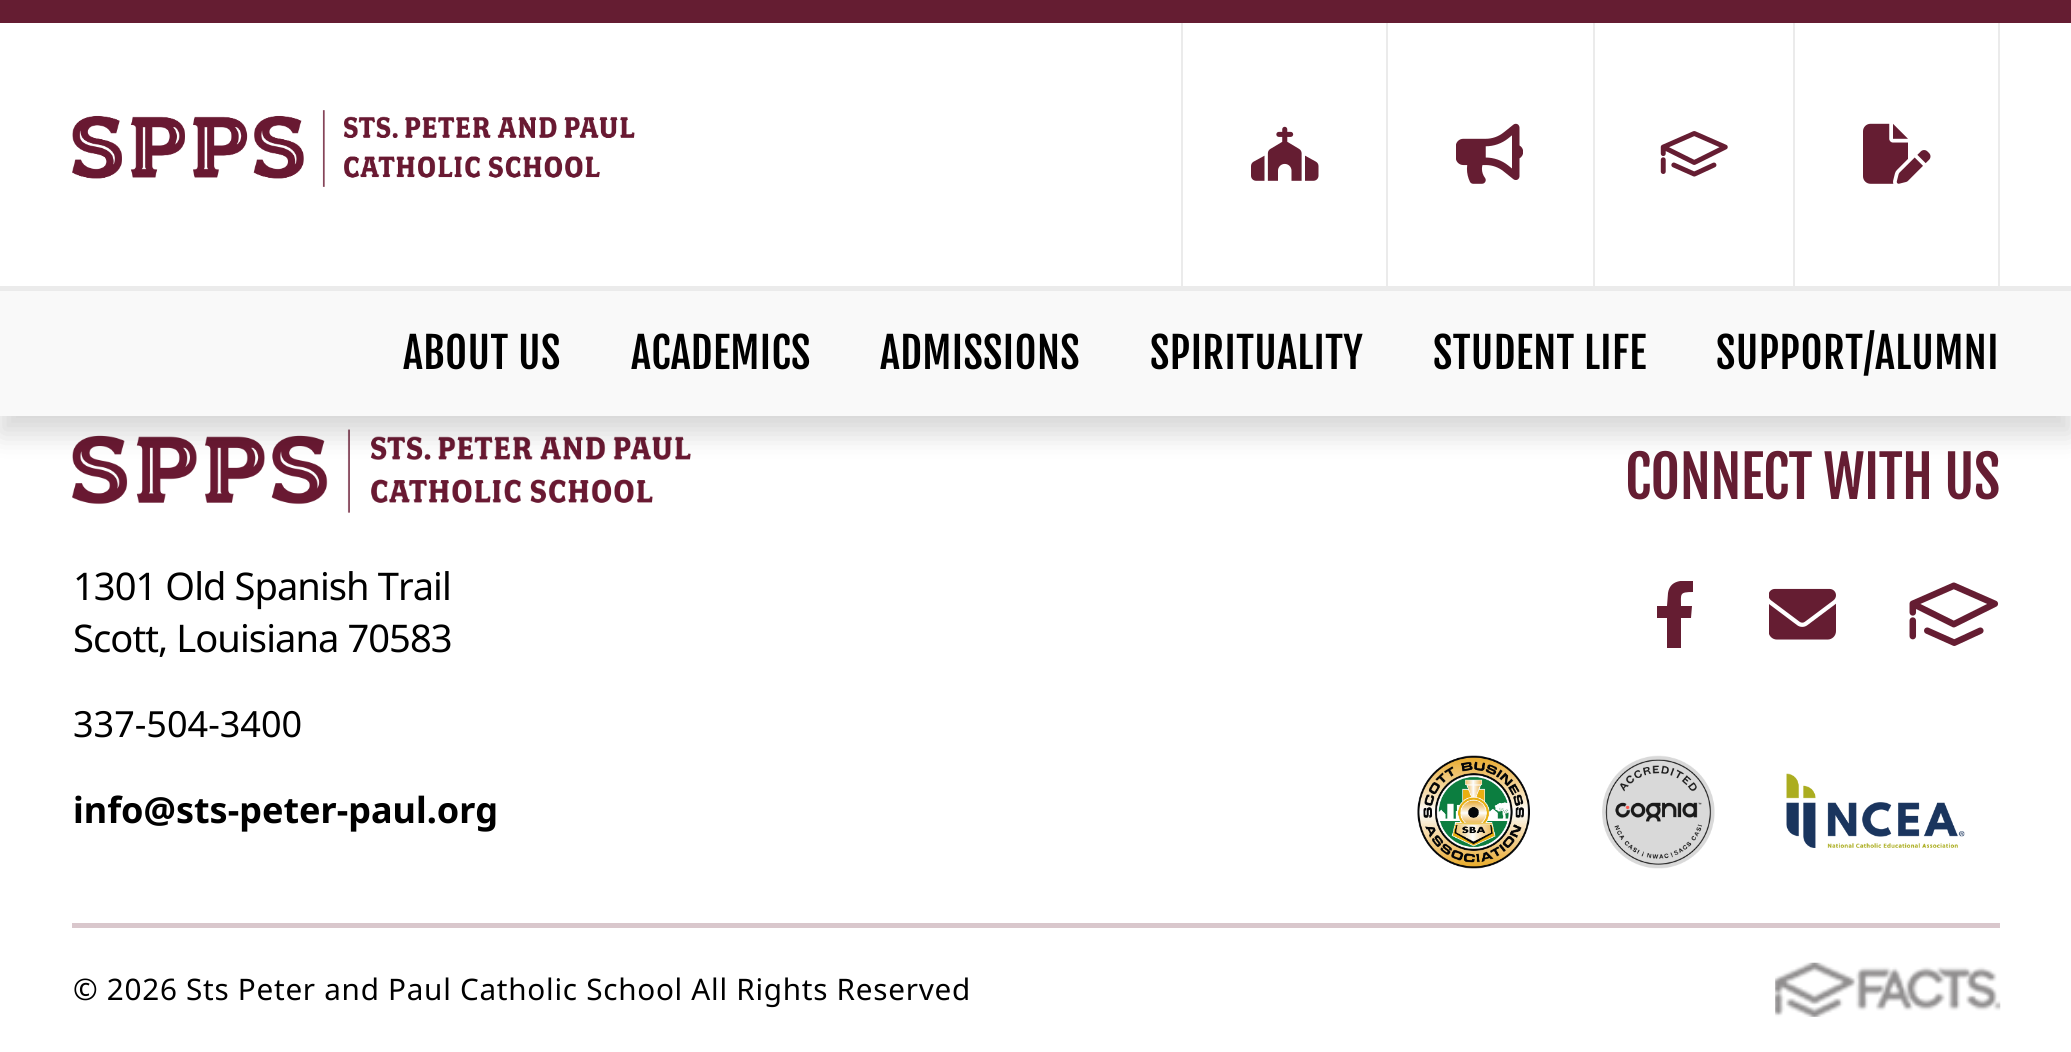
#include <cairo.h>
#include <math.h>
#include <stddef.h>

typedef struct { const char *family; double size; int italic, bold; unsigned color; } style_t;
static cairo_t *ctx;

static void ink(unsigned color) {
    cairo_set_source_rgb(ctx, (color >> 16) / 255.0, (color >> 8 & 255) / 255.0, (color & 255) / 255.0);
}

static void write(double x, double y, const char *s, const style_t *st) {
    cairo_select_font_face(ctx, st->family, st->italic ? CAIRO_FONT_SLANT_ITALIC : CAIRO_FONT_SLANT_NORMAL,
        st->bold ? CAIRO_FONT_WEIGHT_BOLD : CAIRO_FONT_WEIGHT_NORMAL);
    cairo_set_font_size(ctx, st->size);
    ink(st->color);
    cairo_move_to(ctx, x, y);
    cairo_show_text(ctx, s);
}

static void write_spaced(double x, double y, const char *s, double letter, double word) {
    cairo_move_to(ctx, x, y);
    while (*s) {
        char ch[5] = {0};
        int n = 0;
        do ch[n++] = *s++; while ((*s & 0xC0) == 0x80);
        cairo_show_text(ctx, ch);
        cairo_rel_move_to(ctx, letter + word * (*ch == ' '), 0);
    }
}

static void block(double x, double y, double w, double h, unsigned color) {
    ink(color);
    cairo_rectangle(ctx, x, y, w, h);
    cairo_fill(ctx);
}

static void round_path(double x, double y, double w, double h, double r) {
    cairo_new_sub_path(ctx);
    cairo_arc(ctx, x + w - r, y + h - r, r, 0, M_PI / 2);
    cairo_arc(ctx, x + r, y + h - r, r, M_PI / 2, M_PI);
    cairo_arc(ctx, x + r, y + r, r, M_PI, 1.5 * M_PI);
    cairo_arc(ctx, x + w - r, y + r, r, 1.5 * M_PI, 2 * M_PI);
    cairo_close_path(ctx);
}

static void blur_box(double x, double y, double w, double h, double r, double blur, double alpha) {
    cairo_push_group_with_content(ctx, CAIRO_CONTENT_ALPHA);
    cairo_set_operator(ctx, CAIRO_OPERATOR_SOURCE);
    for (int i = 15; i >= -15 && fmin(w, h) + blur * i / 3 > 0; i -= 2) {
        double e = blur * i / 6;
        cairo_set_source_rgba(ctx, 0, 0, 0, alpha * erfc((i - 1) / 8.5) / 2);
        round_path(x - e, y - e, w + 2 * e, h + 2 * e, fmax(0, fmin(r + e + blur * .6, fmin(w, h) / 2 + e)));
        cairo_fill(ctx);
    }
    cairo_pattern_t *soft = cairo_pop_group(ctx);
    cairo_mask(ctx, soft);
    cairo_pattern_destroy(soft);
}

static void paste(const char *path, double x, double y, double w, double h) {
    cairo_surface_t *image = cairo_image_surface_create_from_png(path);
    cairo_save(ctx);
    cairo_set_source_surface(ctx, image, x, y);
    cairo_rectangle(ctx, x, y, w, h);
    cairo_fill(ctx);
    cairo_restore(ctx);
    cairo_surface_destroy(image);
}

static const style_t s1 = {"Noto Sans", 36, 0, 0, 0x000000};
static const style_t s2 = {"Noto Sans", 36, 0, 1, 0x000000};

int main(void) {
    cairo_surface_t *surface = cairo_image_surface_create(CAIRO_FORMAT_RGB24, 2071, 1052);
    ctx = cairo_create(surface);
    cairo_font_options_t *options = cairo_font_options_create();
    cairo_font_options_set_hint_metrics(options, CAIRO_HINT_METRICS_OFF);
    cairo_font_options_set_hint_style(options, CAIRO_HINT_STYLE_NONE);
    cairo_set_font_options(ctx, options);
    cairo_set_miter_limit(ctx, 4);
    ink(0xffffff);
    cairo_paint(ctx);
    paste("pic11.png", 72, 429, 619, 84);
    ink(0x000000);
    blur_box(0, 18, 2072, 416, 0, 13.5, 0.16);
    block(0, 0, 2071, 23, 0x651d32);
    block(0, 23, 2071, 263, 0xffffff);
    block(0, 286, 2071, 5, 0xebebeb);
    paste("pic1.png", 72, 110, 563, 77);
    block(1386, 23, 2, 263, 0xebebeb);
    block(1181, 23, 2, 263, 0xebebeb);
    paste("pic2.png", 1251, 126, 68, 55);
    block(1593, 23, 2, 263, 0xebebeb);
    paste("pic3.png", 1456, 123, 67, 61);
    block(1793, 23, 2, 263, 0xebebeb);
    paste("pic4.png", 1660, 131, 68, 46);
    block(1998, 23, 2, 263, 0xebebeb);
    paste("pic5.png", 1863, 123, 68, 61);
    block(0, 291, 2071, 125, 0xf9f9f9);
    cairo_select_font_face(ctx, "Fjalla One", CAIRO_FONT_SLANT_NORMAL, CAIRO_FONT_WEIGHT_NORMAL);
    cairo_set_font_size(ctx, 42.25);
    ink(0x000000);
    write_spaced(403, 369, "ABOUT US", 0.4, 0);
    write_spaced(631, 369, "ACADEMICS", 0.4, 0);
    write_spaced(880, 369, "ADMISSIONS", 0.4, 0);
    write_spaced(1150, 369, "SPIRITUALITY", 0.4, 0);
    write_spaced(1433, 369, "STUDENT LIFE", 0.4, 0);
    write_spaced(1716, 369, "SUPPORT/ALUMNI", 0.4, 0);
    block(72, 923, 1928, 5, 0xd9c7cc);
    cairo_set_font_size(ctx, 57.25);
    ink(0x651d32);
    write_spaced(1625, 499, "CONNECT WITH US", -0.6, 0);
    cairo_save(ctx);
    cairo_rectangle(ctx, 1654, 581, 43, 67);
    cairo_clip(ctx);
    cairo_new_path(ctx);
    cairo_move_to(ctx, 1691, 618);
    cairo_line_to(ctx, 1692, 606);
    cairo_line_to(ctx, 1681, 606);
    cairo_curve_to(ctx, 1681, 594, 1679, 592, 1693, 592);
    cairo_line_to(ctx, 1693, 581);
    cairo_curve_to(ctx, 1682, 580, 1670, 580, 1668, 593);
    cairo_line_to(ctx, 1667, 606);
    cairo_line_to(ctx, 1657, 606);
    cairo_line_to(ctx, 1657, 618);
    cairo_line_to(ctx, 1667, 618);
    cairo_line_to(ctx, 1667, 648);
    cairo_line_to(ctx, 1681, 648);
    cairo_line_to(ctx, 1681, 618);
    cairo_close_path(ctx);
    cairo_fill(ctx);
    cairo_restore(ctx);
    paste("pic6.png", 1769, 588, 67, 52);
    paste("pic7.png", 1909, 582, 90, 64);
    paste("pic8.png", 1417, 755, 113, 114);
    paste("pic9.png", 1602, 755, 113, 114);
    paste("pic10.png", 1786, 773, 179, 75);
    cairo_select_font_face(ctx, "Noto Sans", CAIRO_FONT_SLANT_NORMAL, CAIRO_FONT_WEIGHT_NORMAL);
    cairo_set_font_size(ctx, 38.1);
    ink(0x000000);
    write_spaced(73, 600, "1301 Old Spanish Trail", -0.95, 0);
    write_spaced(73, 652, "Scott, Louisiana 70583", -0.95, 0);
    write(73, 737, "337-504-3400", &s1);
    write(73, 823, "info@sts-peter-paul.org", &s2);
    cairo_select_font_face(ctx, "Noto Sans", CAIRO_FONT_SLANT_NORMAL, CAIRO_FONT_WEIGHT_NORMAL);
    cairo_set_font_size(ctx, 29.65);
    write_spaced(73, 1000, "© 2026 Sts Peter and Paul Catholic School All Rights Reserved", 0.75, -0.1);
    paste("pic12.png", 1775, 962, 226, 55);
    cairo_surface_write_to_png(surface, "screenshot.png");
    cairo_font_options_destroy(options);
    cairo_destroy(ctx);
    cairo_surface_destroy(surface);
    return 0;
}
